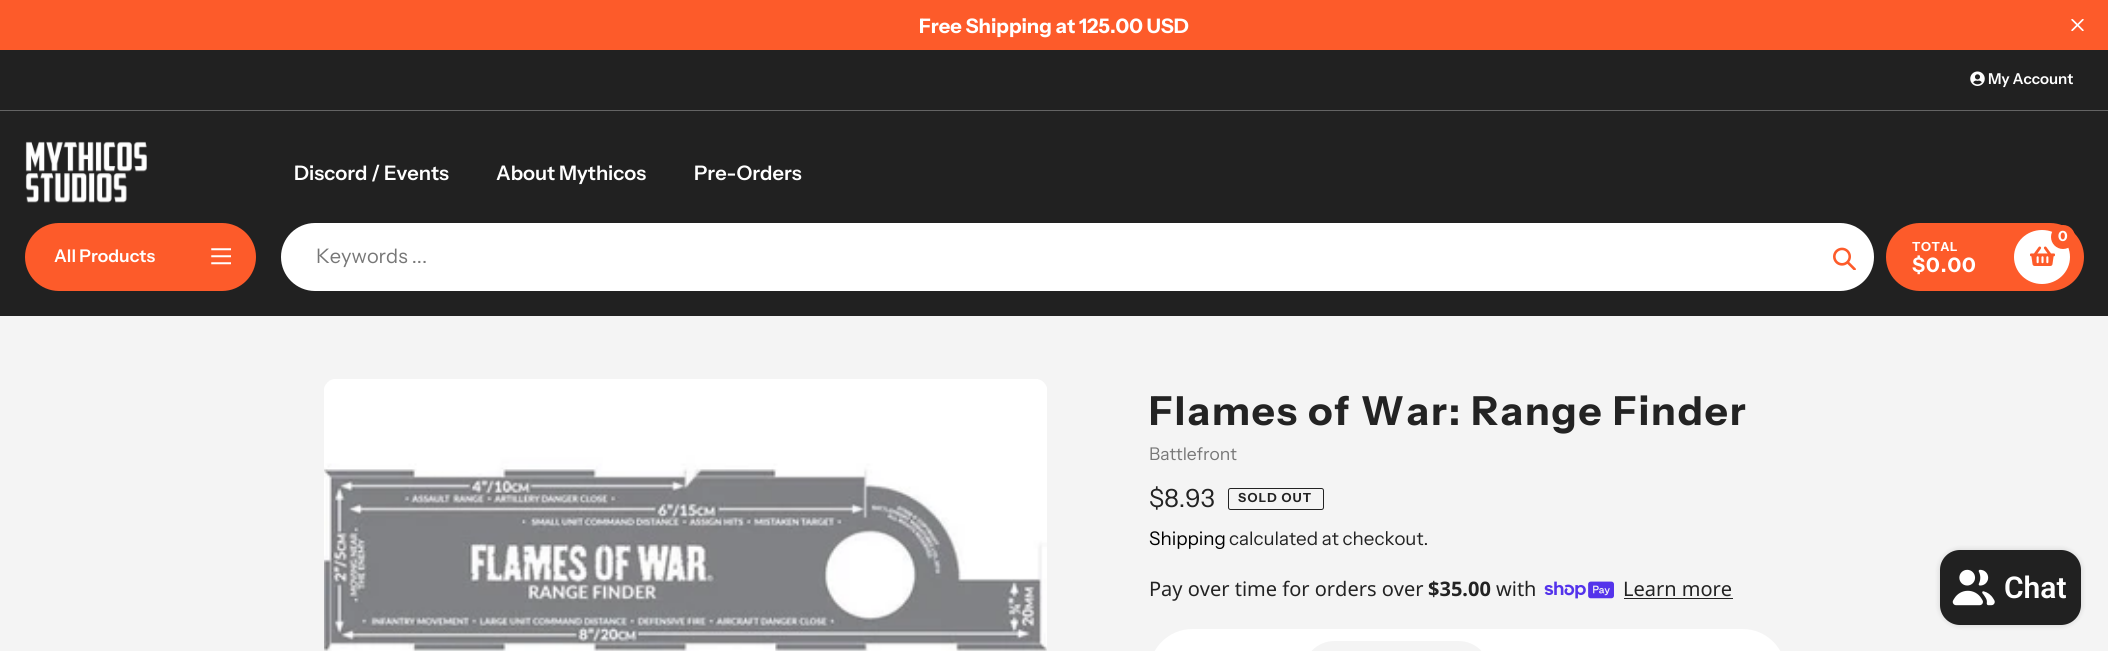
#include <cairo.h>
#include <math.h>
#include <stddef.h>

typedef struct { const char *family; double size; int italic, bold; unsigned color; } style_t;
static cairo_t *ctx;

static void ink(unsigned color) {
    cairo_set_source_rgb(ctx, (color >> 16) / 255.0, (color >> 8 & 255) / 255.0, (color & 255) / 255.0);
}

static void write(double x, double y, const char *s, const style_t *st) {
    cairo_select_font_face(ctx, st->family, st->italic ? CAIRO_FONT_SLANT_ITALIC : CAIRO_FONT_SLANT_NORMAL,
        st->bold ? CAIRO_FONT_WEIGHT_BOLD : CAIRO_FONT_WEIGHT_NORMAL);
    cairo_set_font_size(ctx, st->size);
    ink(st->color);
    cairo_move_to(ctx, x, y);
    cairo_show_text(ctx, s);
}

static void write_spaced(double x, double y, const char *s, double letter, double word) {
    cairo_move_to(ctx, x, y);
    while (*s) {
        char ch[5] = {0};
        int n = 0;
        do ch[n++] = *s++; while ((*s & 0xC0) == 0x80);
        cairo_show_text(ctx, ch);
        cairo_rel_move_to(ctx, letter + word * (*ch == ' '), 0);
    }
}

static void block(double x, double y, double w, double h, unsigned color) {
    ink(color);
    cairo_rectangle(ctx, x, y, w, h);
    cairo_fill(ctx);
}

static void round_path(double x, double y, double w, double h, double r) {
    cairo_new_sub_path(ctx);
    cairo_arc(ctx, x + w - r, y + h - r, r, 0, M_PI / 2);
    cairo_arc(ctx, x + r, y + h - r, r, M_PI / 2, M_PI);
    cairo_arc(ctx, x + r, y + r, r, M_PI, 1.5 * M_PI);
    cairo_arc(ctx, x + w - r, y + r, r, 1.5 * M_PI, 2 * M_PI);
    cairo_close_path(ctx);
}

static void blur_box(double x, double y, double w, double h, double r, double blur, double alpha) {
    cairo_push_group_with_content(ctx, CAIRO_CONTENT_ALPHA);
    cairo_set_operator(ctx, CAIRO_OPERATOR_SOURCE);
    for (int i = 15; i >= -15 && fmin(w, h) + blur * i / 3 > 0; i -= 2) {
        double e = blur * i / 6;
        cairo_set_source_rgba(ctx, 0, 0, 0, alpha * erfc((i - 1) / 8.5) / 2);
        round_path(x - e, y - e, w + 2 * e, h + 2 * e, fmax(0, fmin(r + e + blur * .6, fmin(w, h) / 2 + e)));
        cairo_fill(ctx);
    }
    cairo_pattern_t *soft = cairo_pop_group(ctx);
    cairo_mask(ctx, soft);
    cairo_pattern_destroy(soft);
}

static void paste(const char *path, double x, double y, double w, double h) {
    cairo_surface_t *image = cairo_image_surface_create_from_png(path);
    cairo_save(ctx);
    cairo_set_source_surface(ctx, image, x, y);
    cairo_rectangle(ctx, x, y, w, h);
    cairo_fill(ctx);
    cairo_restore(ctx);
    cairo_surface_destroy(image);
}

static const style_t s1 = {"Instrument Sans", 20, 0, 1, 0xffffff};
static const style_t s2 = {"Instrument Sans SemiBold", 15, 0, 0, 0xffffff};
static const style_t s3 = {"Instrument Sans SemiBold", 20, 0, 0, 0xffffff};
static const style_t s4 = {"Instrument Sans SemiBold", 17.5, 0, 0, 0xffffff};
static const style_t s5 = {"Instrument Sans", 20, 0, 0, 0x777777};
static const style_t s6 = {"Instrument Sans", 14, 0, 1, 0xffffff};
static const style_t s7 = {"Instrument Sans", 17.5, 0, 0, 0x777777};
static const style_t s8 = {"Instrument Sans", 25, 0, 0, 0x232323};
static const style_t s9 = {"Instrument Sans", 18.75, 0, 0, 0x000000};
static const style_t s10 = {"Instrument Sans", 18.75, 0, 0, 0x232323};
static const style_t s11 = {"Noto Sans", 20, 0, 0, 0x232323};
static const style_t s12 = {"Noto Sans", 20, 0, 1, 0x232323};
static const style_t s13 = {"Roboto SemiBold", 30, 0, 0, 0xffffff};

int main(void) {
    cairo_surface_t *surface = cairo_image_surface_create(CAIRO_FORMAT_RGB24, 2108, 651);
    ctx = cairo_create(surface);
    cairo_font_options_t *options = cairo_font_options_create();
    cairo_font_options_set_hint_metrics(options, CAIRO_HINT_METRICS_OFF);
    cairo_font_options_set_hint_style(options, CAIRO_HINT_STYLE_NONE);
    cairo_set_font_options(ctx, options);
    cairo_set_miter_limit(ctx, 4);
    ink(0xf4f4f4);
    cairo_paint(ctx);
    block(0, 0, 2108, 50, 0xfd5b2a);
    write(919, 33, "Free Shipping at 125.00 USD", &s1);
    paste("pic1.png", 2071, 19, 13, 12);
    block(0, 50, 2108, 266, 0x212121);
    block(0, 110, 2108, 1, 0x646464);
    paste("pic2.png", 1970, 71, 15, 15);
    write(1988, 84, "My Account", &s2);
    paste("pic3.png", 25, 141, 122, 62);
    write(294, 180, "Discord / Events", &s3);
    write(496, 180, "About Mythicos", &s3);
    write(694, 180, "Pre-Orders", &s3);
    ink(0xfd5b2a);
    round_path(25, 223, 231, 68, 34);
    cairo_fill(ctx);
    write(54, 262, "All Products", &s4);
    paste("pic4.png", 211, 248, 20, 17);
    round_path(281, 223, 1593, 68, 34);
    cairo_fill(ctx);
    write(316, 263, "Keywords ...", &s5);
    paste("pic5.png", 1833, 247, 23, 23);
    ink(0xfd5b2a);
    round_path(1886, 223, 198, 68, 34);
    cairo_fill(ctx);
    ink(0xffffff);
    cairo_new_path(ctx);
    cairo_move_to(ctx, 2042, 230);
    cairo_curve_to(ctx, 2057.5, 230, 2070, 242, 2070, 257);
    cairo_curve_to(ctx, 2070, 272, 2057.5, 284, 2042, 284);
    cairo_curve_to(ctx, 2026.5, 284, 2014, 272, 2014, 257);
    cairo_curve_to(ctx, 2014, 242, 2026.5, 230, 2042, 230);
    cairo_close_path(ctx);
    cairo_fill(ctx);
    paste("pic6.png", 2030, 246, 25, 20);
    ink(0xfd5b2a);
    cairo_arc(ctx, 2063, 237, 12, 0, 2 * M_PI);
    cairo_fill(ctx);
    write(2058, 241, "0", &s6);
    cairo_set_font_size(ctx, 12.5);
    write_spaced(1912, 251, "TOTAL", 0.5, 0);
    cairo_set_font_size(ctx, 20);
    write_spaced(1912, 272, "$0.00", 1, 0);
    paste("pic7.png", 324, 379, 723, 272);
    cairo_set_font_size(ctx, 40);
    ink(0x232323);
    write_spaced(1149, 425, "Flames of War: Range Finder", 1.9, 0);
    write(1149, 460, "Battlefront", &s7);
    write(1149, 507, "$8.93", &s8);
    round_path(1228.5, 488.5, 95, 21, 2);
    cairo_set_line_width(ctx, 1);
    cairo_stroke(ctx);
    cairo_select_font_face(ctx, "Instrument Sans", CAIRO_FONT_SLANT_NORMAL, CAIRO_FONT_WEIGHT_BOLD);
    cairo_set_font_size(ctx, 12.5);
    write_spaced(1238, 502, "SOLD OUT", 1.25, 0);
    write(1149, 545, "Shipping", &s9);
    write(1229, 545, "calculated at checkout.", &s10);
    write(1149, 596, "Pay over time for orders over", &s11);
    write(1428, 596, "$35.00", &s12);
    write(1496, 596, "with", &s11);
    paste("pic8.png", 1544, 581, 70, 18);
    write(1623, 596, "Learn more", &s11);
    block(1624, 598, 109, 1, 0x232323);
    ink(0xffffff);
    round_path(1149, 629, 637, 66, 43.5);
    cairo_fill(ctx);
    ink(0xf4f4f4);
    round_path(1303, 641, 187, 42, 31.5);
    cairo_fill(ctx);
    ink(0x000000);
    blur_box(1940, 550, 141, 75, 20, 3, 0.15);
    ink(0x212121);
    round_path(1940, 550, 141, 75, 20);
    cairo_fill(ctx);
    paste("pic9.png", 1952, 569, 43, 37);
    write(2004, 598, "Chat", &s13);
    cairo_surface_write_to_png(surface, "screenshot.png");
    cairo_font_options_destroy(options);
    cairo_destroy(ctx);
    cairo_surface_destroy(surface);
    return 0;
}
